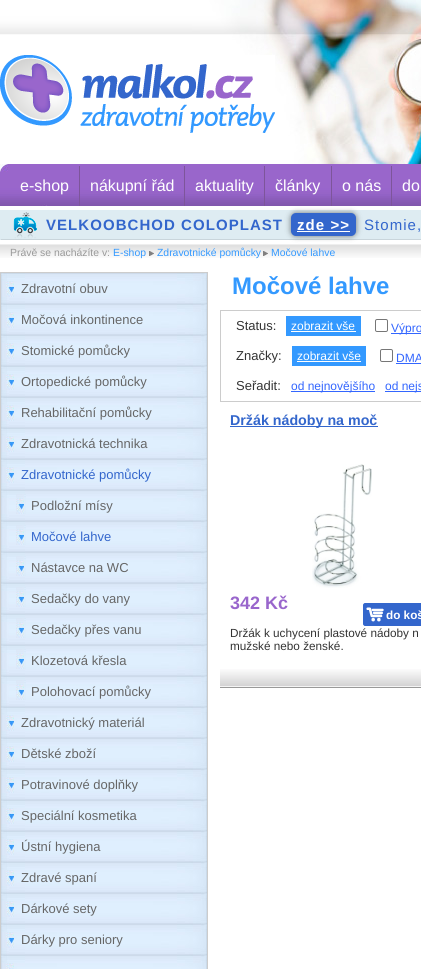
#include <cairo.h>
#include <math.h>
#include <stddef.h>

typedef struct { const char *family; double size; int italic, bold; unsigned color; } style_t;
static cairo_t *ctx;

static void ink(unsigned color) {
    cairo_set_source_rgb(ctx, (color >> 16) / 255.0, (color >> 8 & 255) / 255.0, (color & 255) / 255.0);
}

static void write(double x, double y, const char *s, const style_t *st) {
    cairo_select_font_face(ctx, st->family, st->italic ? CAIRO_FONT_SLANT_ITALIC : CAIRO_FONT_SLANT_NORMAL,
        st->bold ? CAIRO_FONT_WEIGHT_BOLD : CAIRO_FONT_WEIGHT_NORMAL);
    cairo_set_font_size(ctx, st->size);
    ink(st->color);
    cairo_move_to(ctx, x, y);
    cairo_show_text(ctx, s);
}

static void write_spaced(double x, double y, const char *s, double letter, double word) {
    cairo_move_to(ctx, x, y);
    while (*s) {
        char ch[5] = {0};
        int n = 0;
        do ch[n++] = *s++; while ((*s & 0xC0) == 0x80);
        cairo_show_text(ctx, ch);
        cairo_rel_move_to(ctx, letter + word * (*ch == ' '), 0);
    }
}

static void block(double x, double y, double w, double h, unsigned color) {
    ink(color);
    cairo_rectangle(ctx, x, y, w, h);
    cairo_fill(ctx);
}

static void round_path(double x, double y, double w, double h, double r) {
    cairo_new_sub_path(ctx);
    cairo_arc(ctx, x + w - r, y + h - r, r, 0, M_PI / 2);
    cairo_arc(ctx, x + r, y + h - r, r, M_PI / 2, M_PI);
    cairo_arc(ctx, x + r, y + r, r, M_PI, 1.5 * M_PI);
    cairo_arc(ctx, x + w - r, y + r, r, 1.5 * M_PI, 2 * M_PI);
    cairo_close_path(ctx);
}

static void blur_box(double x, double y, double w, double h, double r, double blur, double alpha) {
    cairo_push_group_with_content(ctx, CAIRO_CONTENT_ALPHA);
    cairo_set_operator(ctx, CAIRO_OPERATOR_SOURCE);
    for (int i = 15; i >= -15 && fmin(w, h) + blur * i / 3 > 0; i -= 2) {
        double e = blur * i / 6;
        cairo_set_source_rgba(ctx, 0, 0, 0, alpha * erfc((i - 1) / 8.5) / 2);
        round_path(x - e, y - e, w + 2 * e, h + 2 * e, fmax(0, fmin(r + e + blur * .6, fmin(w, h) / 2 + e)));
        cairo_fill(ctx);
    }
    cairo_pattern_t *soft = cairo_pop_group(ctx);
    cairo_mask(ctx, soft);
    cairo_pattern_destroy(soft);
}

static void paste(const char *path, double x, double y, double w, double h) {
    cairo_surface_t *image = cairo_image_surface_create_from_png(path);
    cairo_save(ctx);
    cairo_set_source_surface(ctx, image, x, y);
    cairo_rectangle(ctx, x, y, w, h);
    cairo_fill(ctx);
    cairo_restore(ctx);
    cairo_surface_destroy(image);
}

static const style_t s1 = {"Liberation Sans", 16, 0, 0, 0xffffff};
static const style_t s2 = {"Liberation Sans", 10.4, 0, 0, 0x999999};
static const style_t s3 = {"Liberation Sans", 10.4, 0, 0, 0x3399ff};
static const style_t s4 = {"Liberation Sans", 13, 0, 0, 0x666666};
static const style_t s5 = {"Liberation Sans", 13, 0, 0, 0x3366cc};
static const style_t s6 = {"Liberation Sans", 24, 0, 1, 0x3399ff};
static const style_t s7 = {"Liberation Sans", 13, 0, 0, 0x333333};
static const style_t s8 = {"Liberation Sans", 12, 0, 0, 0xffffff};
static const style_t s9 = {"Liberation Sans", 12, 0, 0, 0x3366ff};
static const style_t s10 = {"Liberation Sans", 14.25, 0, 1, 0x3366cc};
static const style_t s11 = {"Liberation Sans", 18, 0, 1, 0x9966cc};
static const style_t s12 = {"Liberation Sans", 11.75, 0, 1, 0xffffff};
static const style_t s13 = {"Liberation Sans", 11.75, 0, 0, 0x333333};

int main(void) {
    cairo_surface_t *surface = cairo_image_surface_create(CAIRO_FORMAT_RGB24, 421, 969);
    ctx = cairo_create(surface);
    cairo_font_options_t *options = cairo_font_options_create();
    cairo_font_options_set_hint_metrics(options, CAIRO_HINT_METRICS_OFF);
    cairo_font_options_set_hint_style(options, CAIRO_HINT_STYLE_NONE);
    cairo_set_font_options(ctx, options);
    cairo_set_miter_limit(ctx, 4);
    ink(0xffffff);
    cairo_paint(ctx);
    paste("pic1.png", 0, 0, 421, 164);
    paste("pic2.png", 0, 55, 275, 78);
    paste("pic3.png", 0, 164, 421, 42);
    block(79, 166, 1, 40, 0x7d559a);
    write(20, 191, "e-shop", &s1);
    block(184, 166, 1, 40, 0x7d559a);
    write(90, 191, "nákupní řád", &s1);
    block(264, 166, 1, 40, 0x7d559a);
    write(195, 191, "aktuality", &s1);
    block(331, 166, 1, 40, 0x7d559a);
    write(275, 191, "články", &s1);
    block(391, 166, 1, 40, 0x7d559a);
    write(342, 191, "o nás", &s1);
    write(402, 191, "do", &s1);
    paste("pic4.png", 0, 210, 421, 30);
    cairo_select_font_face(ctx, "Liberation Sans", CAIRO_FONT_SLANT_NORMAL, CAIRO_FONT_WEIGHT_BOLD);
    cairo_set_font_size(ctx, 15);
    ink(0x3366cc);
    write_spaced(46, 230, "VELKOOBCHOD COLOPLAST", 1.05, 0);
    ink(0x000000);
    blur_box(291, 213, 65, 23, 5, 3, 0.5);
    ink(0x3366cc);
    round_path(291, 213, 65, 23, 5);
    cairo_fill(ctx);
    ink(0xffffff);
    write_spaced(297, 230, "zde >>", 1.05, 0);
    block(297, 231, 53, 1, 0xffffff);
    cairo_select_font_face(ctx, "Liberation Sans", CAIRO_FONT_SLANT_NORMAL, CAIRO_FONT_WEIGHT_NORMAL);
    ink(0x3366cc);
    write_spaced(364, 230, "Stomie,", 1.05, 0);
    paste("pic5.png", 0, 244, 421, 14);
    write(10, 256, "Právě se nacházíte v:", &s2);
    write(113, 256, "E-shop", &s3);
    paste("pic6.png", 149, 251, 5, 5);
    write(157, 256, "Zdravotnické pomůcky", &s3);
    paste("pic6.png", 263, 251, 5, 5);
    write(271, 256, "Močové lahve", &s3);
    cairo_rectangle(ctx, 0.5, 272.5, 207, 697);
    ink(0xcccccc);
    cairo_set_line_width(ctx, 1);
    cairo_stroke(ctx);
    paste("pic7.png", 1, 273, 206, 31);
    paste("pic8.png", 6, 281, 8, 16);
    write(21, 293, "Zdravotní obuv", &s4);
    paste("pic7.png", 1, 304, 206, 31);
    paste("pic8.png", 6, 312, 8, 16);
    write(21, 324, "Močová inkontinence", &s4);
    paste("pic7.png", 1, 335, 206, 31);
    paste("pic8.png", 6, 343, 8, 16);
    write(21, 355, "Stomické pomůcky", &s4);
    paste("pic7.png", 1, 366, 206, 31);
    paste("pic8.png", 6, 374, 8, 16);
    write(21, 386, "Ortopedické pomůcky", &s4);
    paste("pic7.png", 1, 397, 206, 31);
    paste("pic8.png", 6, 405, 8, 16);
    write(21, 417, "Rehabilitační pomůcky", &s4);
    paste("pic7.png", 1, 428, 206, 31);
    paste("pic8.png", 6, 436, 8, 16);
    write(21, 448, "Zdravotnická technika", &s4);
    paste("pic7.png", 1, 459, 206, 31);
    paste("pic8.png", 6, 467, 8, 16);
    write(21, 479, "Zdravotnické pomůcky", &s5);
    paste("pic7.png", 1, 490, 206, 31);
    paste("pic9.png", 16, 494, 10, 20);
    write(31, 510, "Podložní mísy", &s4);
    paste("pic7.png", 1, 521, 206, 31);
    paste("pic9.png", 16, 525, 10, 20);
    write(31, 541, "Močové lahve", &s5);
    paste("pic7.png", 1, 552, 206, 31);
    paste("pic9.png", 16, 556, 10, 20);
    write(31, 572, "Nástavce na WC", &s4);
    paste("pic7.png", 1, 583, 206, 31);
    paste("pic9.png", 16, 587, 10, 20);
    write(31, 603, "Sedačky do vany", &s4);
    paste("pic7.png", 1, 614, 206, 31);
    paste("pic9.png", 16, 618, 10, 20);
    write(31, 634, "Sedačky přes vanu", &s4);
    paste("pic7.png", 1, 645, 206, 31);
    paste("pic9.png", 16, 649, 10, 20);
    write(31, 665, "Klozetová křesla", &s4);
    paste("pic7.png", 1, 676, 206, 31);
    paste("pic9.png", 16, 680, 10, 20);
    write(31, 696, "Polohovací pomůcky", &s4);
    paste("pic7.png", 1, 707, 206, 31);
    paste("pic8.png", 6, 715, 8, 16);
    write(21, 727, "Zdravotnický materiál", &s4);
    paste("pic7.png", 1, 738, 206, 31);
    paste("pic8.png", 6, 746, 8, 16);
    write(21, 758, "Dětské zboží", &s4);
    paste("pic7.png", 1, 769, 206, 31);
    paste("pic8.png", 6, 777, 8, 16);
    write(21, 789, "Potravinové doplňky", &s4);
    paste("pic7.png", 1, 800, 206, 31);
    paste("pic8.png", 6, 808, 8, 16);
    write(21, 820, "Speciální kosmetika", &s4);
    paste("pic7.png", 1, 831, 206, 31);
    paste("pic8.png", 6, 839, 8, 16);
    write(21, 851, "Ústní hygiena", &s4);
    paste("pic7.png", 1, 862, 206, 31);
    paste("pic8.png", 6, 870, 8, 16);
    write(21, 882, "Zdravé spaní", &s4);
    paste("pic7.png", 1, 893, 206, 31);
    paste("pic8.png", 6, 901, 8, 16);
    write(21, 913, "Dárkové sety", &s4);
    paste("pic7.png", 1, 924, 206, 31);
    paste("pic8.png", 6, 932, 8, 16);
    write(21, 944, "Dárky pro seniory", &s4);
    paste("pic10.png", 1, 955, 206, 14);
    paste("pic11.png", 6, 963, 8, 6);
    write(232, 294, "Močové lahve", &s6);
    cairo_rectangle(ctx, 220.5, 310.5, 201, 91);
    ink(0xcccccc);
    cairo_stroke(ctx);
    write(236, 330, "Status:", &s7);
    block(286, 316, 75, 20, 0x3399ff);
    write(291, 330, "zobrazit vše", &s8);
    block(291, 331, 65, 1, 0xffffff);
    round_path(375.5, 319.5, 12, 12, 1.5);
    ink(0x767676);
    cairo_stroke(ctx);
    block(391, 333, 30, 1, 0x3366ff);
    write(391, 332, "Výpro", &s9);
    write(236, 360, "Značky:", &s7);
    block(292, 346, 74, 20, 0x3399ff);
    write(297, 360, "zobrazit vše", &s8);
    block(297, 361, 64, 1, 0xffffff);
    round_path(380.5, 349.5, 12, 12, 1.5);
    ink(0x767676);
    cairo_stroke(ctx);
    write(396, 362, "DMA", &s9);
    block(396, 363, 25, 1, 0x3366ff);
    write(236, 390, "Seřadit:", &s7);
    block(291, 391, 84, 1, 0x3366ff);
    write(291, 390, "od nejnovějšího", &s9);
    block(385, 391, 36, 1, 0x3366ff);
    write(385, 390, "od nejs", &s9);
    paste("pic12.png", 220, 669, 201, 18);
    block(220, 687, 201, 1, 0x999999);
    block(230, 426, 148, 1, 0x3366cc);
    write(230, 425, "Držák nádoby na moč", &s10);
    paste("pic13.png", 312, 464, 60, 124);
    write(230, 609, "342 Kč", &s11);
    paste("pic14.png", 363, 603, 58, 23);
    write(386, 619, "do koš", &s12);
    write(230, 637, "Držák k uchycení plastové nádoby n", &s13);
    write(230, 650, "mužské nebo ženské.", &s13);
    cairo_surface_write_to_png(surface, "screenshot.png");
    cairo_font_options_destroy(options);
    cairo_destroy(ctx);
    cairo_surface_destroy(surface);
    return 0;
}
